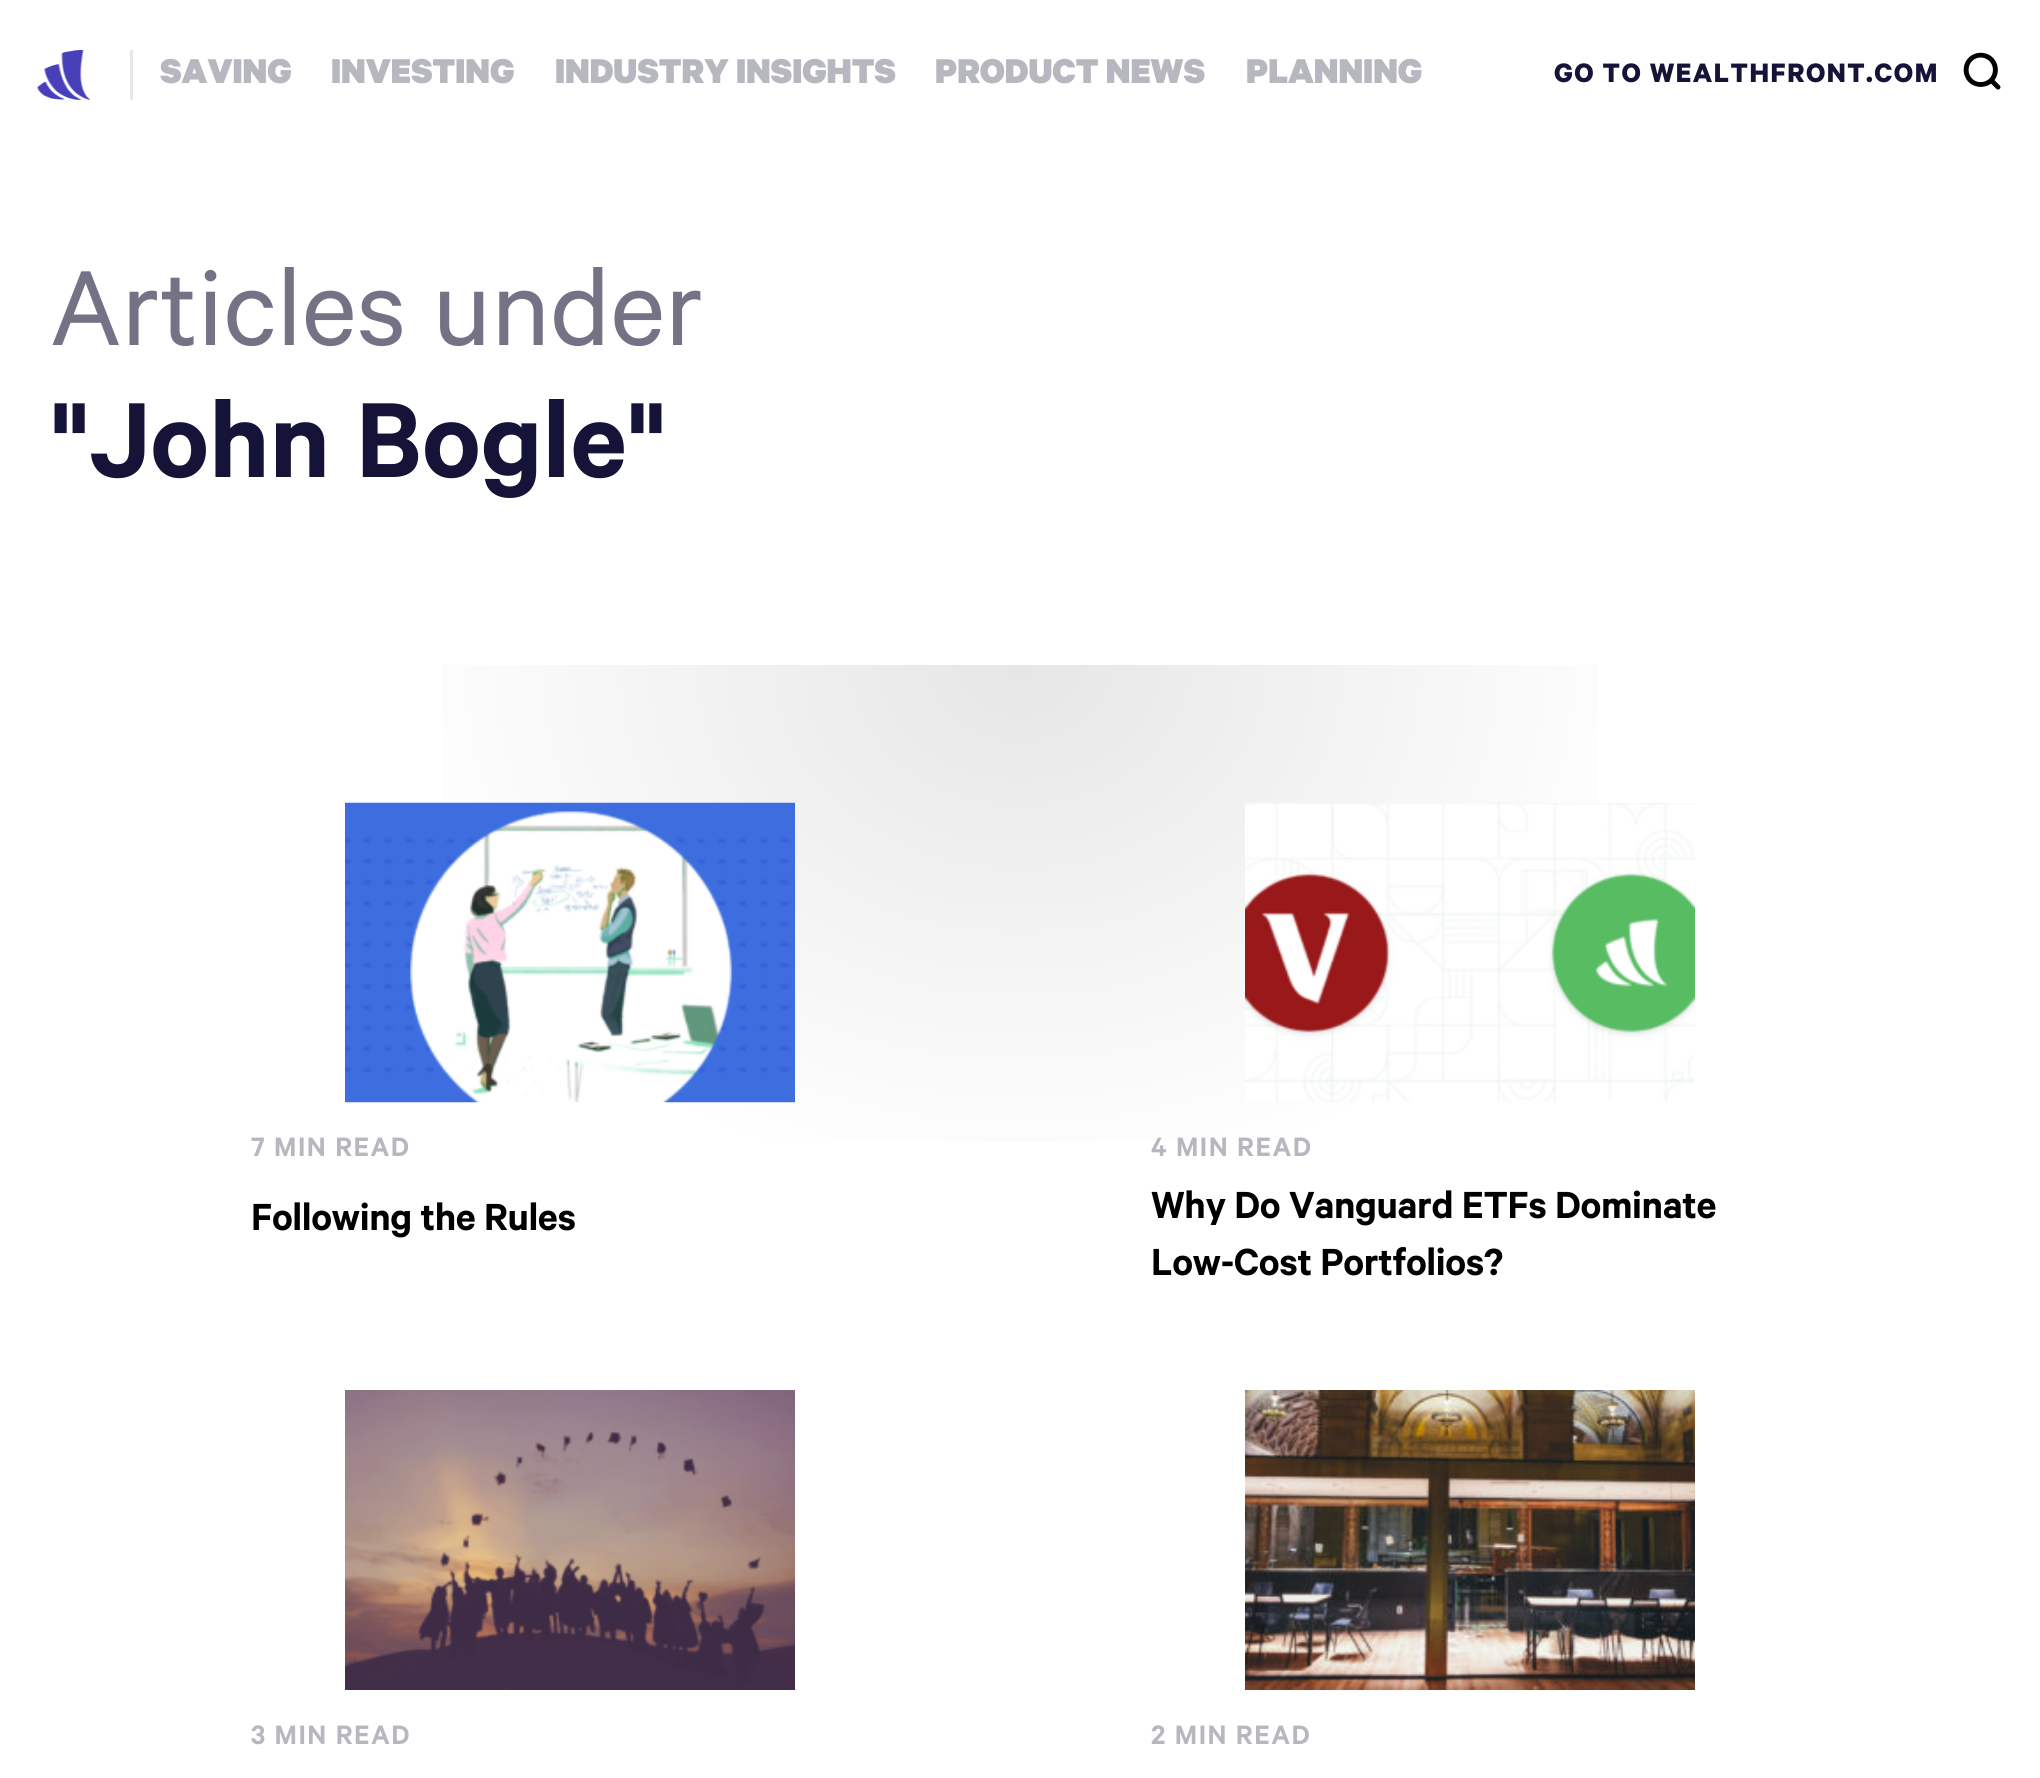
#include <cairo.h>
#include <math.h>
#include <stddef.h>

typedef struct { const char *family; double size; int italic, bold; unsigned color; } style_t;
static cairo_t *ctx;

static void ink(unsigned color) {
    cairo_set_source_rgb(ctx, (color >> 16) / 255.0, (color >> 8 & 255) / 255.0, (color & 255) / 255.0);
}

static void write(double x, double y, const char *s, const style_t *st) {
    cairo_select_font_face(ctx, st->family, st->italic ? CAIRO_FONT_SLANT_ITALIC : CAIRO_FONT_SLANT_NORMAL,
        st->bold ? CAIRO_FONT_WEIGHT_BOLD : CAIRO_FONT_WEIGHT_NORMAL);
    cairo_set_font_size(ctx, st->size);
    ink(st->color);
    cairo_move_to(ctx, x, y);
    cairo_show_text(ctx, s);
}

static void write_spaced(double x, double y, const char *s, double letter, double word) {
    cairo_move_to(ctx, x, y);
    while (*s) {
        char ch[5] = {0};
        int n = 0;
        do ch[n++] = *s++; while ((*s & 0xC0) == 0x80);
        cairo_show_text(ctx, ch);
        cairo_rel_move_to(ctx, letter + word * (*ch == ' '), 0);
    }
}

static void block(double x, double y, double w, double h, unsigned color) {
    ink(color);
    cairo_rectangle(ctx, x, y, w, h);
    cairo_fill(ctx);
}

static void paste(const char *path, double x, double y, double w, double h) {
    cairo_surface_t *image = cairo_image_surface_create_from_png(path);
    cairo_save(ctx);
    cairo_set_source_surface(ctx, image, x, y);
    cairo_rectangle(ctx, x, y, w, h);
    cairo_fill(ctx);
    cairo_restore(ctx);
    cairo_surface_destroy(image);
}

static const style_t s1 = {"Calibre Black", 38.75, 0, 0, 0xb7b7c0};
static const style_t s2 = {"Calibre", 120, 0, 0, 0x747386};
static const style_t s3 = {"Calibre SemiBold", 120, 0, 0, 0x161338};

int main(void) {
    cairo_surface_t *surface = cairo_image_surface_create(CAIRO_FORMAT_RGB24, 2040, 1778);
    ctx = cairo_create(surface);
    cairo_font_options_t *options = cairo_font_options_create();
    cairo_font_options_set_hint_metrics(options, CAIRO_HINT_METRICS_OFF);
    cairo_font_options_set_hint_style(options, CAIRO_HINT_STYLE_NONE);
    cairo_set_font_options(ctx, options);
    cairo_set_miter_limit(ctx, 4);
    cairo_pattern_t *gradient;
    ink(0xffffff);
    cairo_paint(ctx);
    paste("pic1.png", 37, 50, 54, 50);
    block(130, 50, 3, 50, 0xe7e7ea);
    write(160, 83, "SAVING", &s1);
    write(331, 83, "INVESTING", &s1);
    write(555, 83, "INDUSTRY INSIGHTS", &s1);
    write(935, 83, "PRODUCT NEWS", &s1);
    write(1246, 83, "PLANNING", &s1);
    cairo_select_font_face(ctx, "Calibre", CAIRO_FONT_SLANT_NORMAL, CAIRO_FONT_WEIGHT_BOLD);
    cairo_set_font_size(ctx, 30);
    ink(0x161338);
    write_spaced(1554, 82, "GO TO WEALTHFRONT.COM", 1.5, 0);
    paste("pic2.png", 1963, 52, 38, 38);
    write(50, 345, "Articles under", &s2);
    write(50, 477, "\"John Bogle\"", &s3);
    gradient = cairo_pattern_create_radial(0, 0, 0, 0, 0, 1);
    cairo_pattern_set_matrix(gradient, &(cairo_matrix_t){1.0 / 1273, 0, 0, 1.0 / 1061, -1.0 * 1020 / 1273, -1.0 * 665 / 1061});
    cairo_pattern_add_color_stop_rgba(gradient, 0, 0.902, 0.902, 0.902, 1);
    cairo_pattern_add_color_stop_rgba(gradient, 0.5, 1, 1, 1, 1);
    cairo_set_source(ctx, gradient);
    cairo_pattern_destroy(gradient);
    cairo_rectangle(ctx, 442, 665, 1156, 477);
    cairo_fill(ctx);
    paste("pic3.png", 345, 802, 450, 301);
    cairo_set_font_size(ctx, 30);
    ink(0xb7b7c0);
    write_spaced(251, 1156, "7 MIN READ", 1.5, 0);
    cairo_set_font_size(ctx, 42.5);
    ink(0x000000);
    write_spaced(251, 1230, "Following the Rules", -0.4, 0);
    paste("pic4.png", 1245, 802, 450, 300);
    cairo_set_font_size(ctx, 30);
    ink(0xb7b7c0);
    write_spaced(1151, 1156, "4 MIN READ", 1.5, 0);
    cairo_set_font_size(ctx, 42.5);
    ink(0x000000);
    write_spaced(1151, 1218, "Why Do Vanguard ETFs Dominate", -0.4, 0);
    write_spaced(1151, 1275, "Low-Cost Portfolios?", -0.4, 0);
    paste("pic5.png", 345, 1390, 450, 300);
    cairo_set_font_size(ctx, 30);
    ink(0xb7b7c0);
    write_spaced(251, 1744, "3 MIN READ", 1.5, 0);
    paste("pic6.png", 1245, 1390, 450, 300);
    write_spaced(1151, 1744, "2 MIN READ", 1.5, 0);
    cairo_surface_write_to_png(surface, "screenshot.png");
    cairo_font_options_destroy(options);
    cairo_destroy(ctx);
    cairo_surface_destroy(surface);
    return 0;
}
